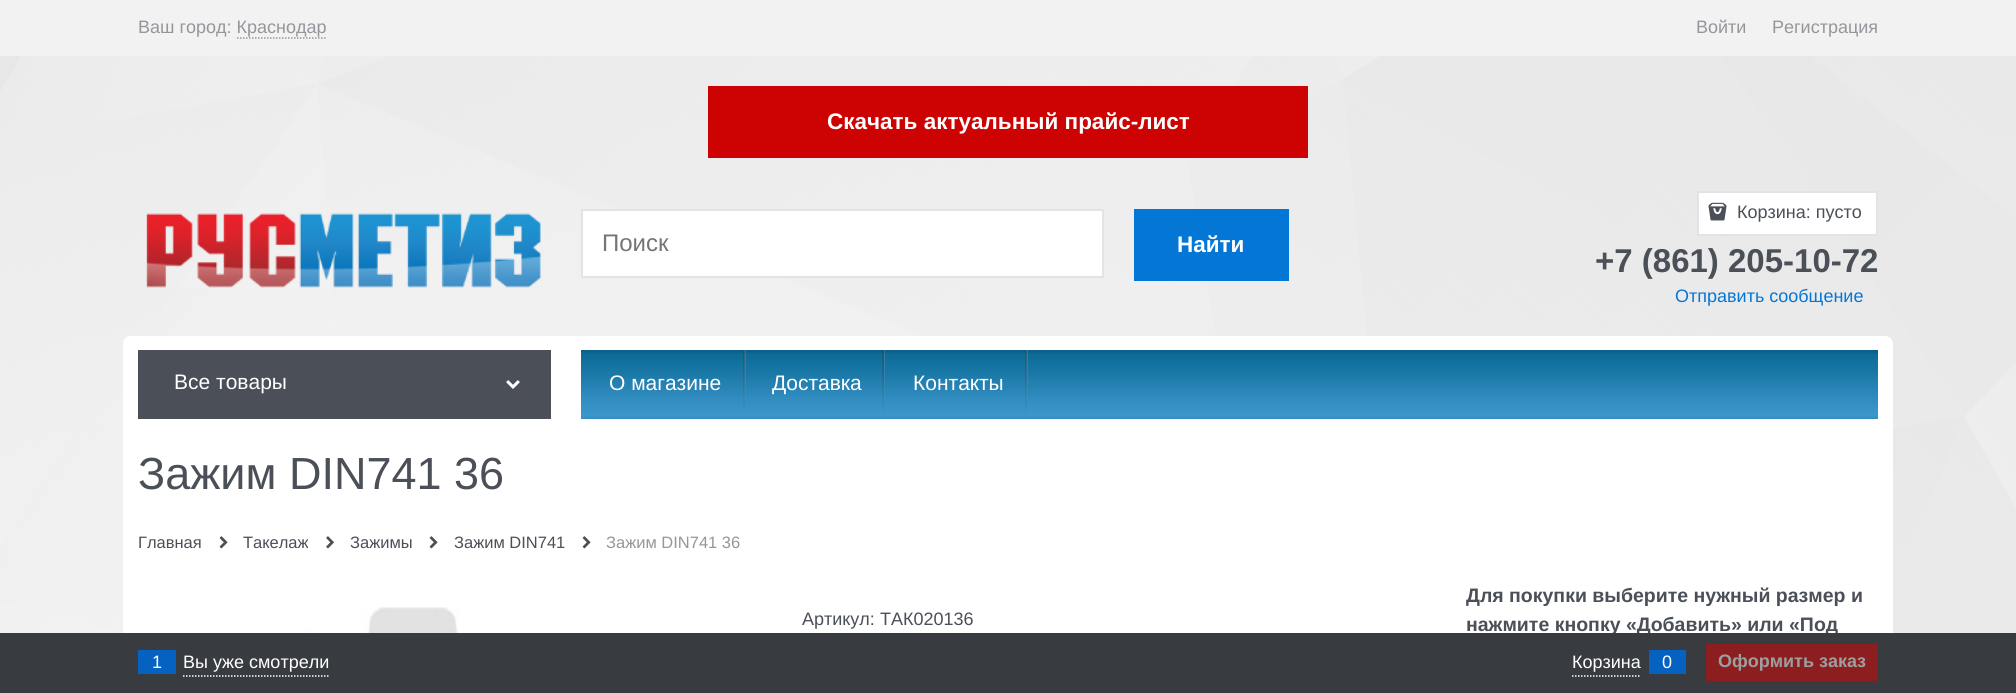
#include <cairo.h>
#include <math.h>
#include <stddef.h>

typedef struct { const char *family; double size; int italic, bold; unsigned color; } style_t;
static cairo_t *ctx;

static void ink(unsigned color) {
    cairo_set_source_rgb(ctx, (color >> 16) / 255.0, (color >> 8 & 255) / 255.0, (color & 255) / 255.0);
}

static void write(double x, double y, const char *s, const style_t *st) {
    cairo_select_font_face(ctx, st->family, st->italic ? CAIRO_FONT_SLANT_ITALIC : CAIRO_FONT_SLANT_NORMAL,
        st->bold ? CAIRO_FONT_WEIGHT_BOLD : CAIRO_FONT_WEIGHT_NORMAL);
    cairo_set_font_size(ctx, st->size);
    ink(st->color);
    cairo_move_to(ctx, x, y);
    cairo_show_text(ctx, s);
}

static void block(double x, double y, double w, double h, unsigned color) {
    ink(color);
    cairo_rectangle(ctx, x, y, w, h);
    cairo_fill(ctx);
}

static void round_path(double x, double y, double w, double h, double r) {
    cairo_new_sub_path(ctx);
    cairo_arc(ctx, x + w - r, y + h - r, r, 0, M_PI / 2);
    cairo_arc(ctx, x + r, y + h - r, r, M_PI / 2, M_PI);
    cairo_arc(ctx, x + r, y + r, r, M_PI, 1.5 * M_PI);
    cairo_arc(ctx, x + w - r, y + r, r, 1.5 * M_PI, 2 * M_PI);
    cairo_close_path(ctx);
}

static void paste(const char *path, double x, double y, double w, double h) {
    cairo_surface_t *image = cairo_image_surface_create_from_png(path);
    cairo_save(ctx);
    cairo_set_source_surface(ctx, image, x, y);
    cairo_rectangle(ctx, x, y, w, h);
    cairo_fill(ctx);
    cairo_restore(ctx);
    cairo_surface_destroy(image);
}

static const style_t s1 = {"Liberation Sans", 18, 0, 0, 0x94969b};
static const style_t s2 = {"Liberation Sans", 22.5, 0, 1, 0xffffff};
static const style_t s3 = {"Liberation Sans", 24, 0, 0, 0x757575};
static const style_t s4 = {"Liberation Sans", 18, 0, 0, 0x4b4f58};
static const style_t s5 = {"Liberation Sans", 33, 0, 1, 0x4b4f58};
static const style_t s6 = {"Liberation Sans", 18, 0, 0, 0x0476d6};
static const style_t s7 = {"Liberation Sans", 21, 0, 0, 0xffffff};
static const style_t s8 = {"Liberation Sans", 45, 0, 0, 0x4b4f58};
static const style_t s9 = {"Liberation Sans", 16.5, 0, 0, 0x4b4f58};
static const style_t s10 = {"Liberation Sans", 16.5, 0, 0, 0x94969b};
static const style_t s11 = {"Liberation Sans", 19.5, 0, 1, 0x4b4f58};
static const style_t s12 = {"Liberation Sans", 18, 0, 0, 0xffffff};
static const style_t s13 = {"Liberation Sans", 18, 0, 1, 0x9c9ea0};

int main(void) {
    cairo_surface_t *surface = cairo_image_surface_create(CAIRO_FORMAT_RGB24, 2016, 693);
    ctx = cairo_create(surface);
    cairo_font_options_t *options = cairo_font_options_create();
    cairo_font_options_set_hint_metrics(options, CAIRO_HINT_METRICS_OFF);
    cairo_font_options_set_hint_style(options, CAIRO_HINT_STYLE_NONE);
    cairo_set_font_options(ctx, options);
    cairo_set_miter_limit(ctx, 4);
    cairo_pattern_t *gradient;
    ink(0xffffff);
    cairo_paint(ctx);
    paste("pic1.png", 0, 0, 2016, 633);
    cairo_set_source_rgba(ctx, 0.953, 0.953, 0.953, 0.9);
    cairo_rectangle(ctx, 0, 0, 2016, 56);
    cairo_fill(ctx);
    write(138, 33, "Ваш город: Краснодар", &s1);
    cairo_new_path(ctx);
    cairo_move_to(ctx, 237, 38);
    cairo_line_to(ctx, 327, 38);
    cairo_set_line_width(ctx, 1.5);
    cairo_set_dash(ctx, (double[]){1.5, 1.5}, 2, 0);
    cairo_stroke(ctx);
    write(1696, 33, "Войти", &s1);
    write(1772, 33, "Регистрация", &s1);
    block(708, 86, 600, 72, 0xcd0303);
    write(827, 129, "Скачать актуальный прайс-лист", &s2);
    paste("pic2.png", 146, 213, 395, 75);
    cairo_rectangle(ctx, 582, 210, 521, 67);
    cairo_fill_preserve(ctx);
    ink(0xe2e3e4);
    cairo_set_line_width(ctx, 2);
    cairo_set_dash(ctx, NULL, 0, 0);
    cairo_stroke(ctx);
    write(602, 251, "Поиск", &s3);
    block(1134, 209, 155, 72, 0x0476d6);
    write(1177, 252, "Найти", &s2);
    cairo_rectangle(ctx, 1698, 192, 179, 43);
    cairo_fill_preserve(ctx);
    ink(0xe2e3e4);
    cairo_stroke(ctx);
    paste("pic3.png", 1708, 202, 19, 19);
    write(1737, 218, "Корзина: пусто", &s4);
    write(1595, 272, "+7 (861) 205-10-72", &s5);
    write(1675, 302, "Отправить сообщение", &s6);
    ink(0xffffff);
    round_path(123, 336, 1770, 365, 8);
    cairo_fill(ctx);
    block(138, 350, 413, 69, 0x4b4f58);
    write(174, 389, "Все товары", &s7);
    paste("pic4.png", 506, 380, 14, 9);
    gradient = cairo_pattern_create_linear(1229, 349, 1229, 419);
    cairo_pattern_add_color_stop_rgba(gradient, 0, 0.031, 0.349, 0.525, 1);
    cairo_pattern_add_color_stop_rgba(gradient, 0.08, 0.055, 0.42, 0.588, 1);
    cairo_pattern_add_color_stop_rgba(gradient, 0.15, 0.063, 0.435, 0.616, 1);
    cairo_pattern_add_color_stop_rgba(gradient, 0.38, 0.106, 0.478, 0.659, 1);
    cairo_pattern_add_color_stop_rgba(gradient, 0.46, 0.137, 0.498, 0.69, 1);
    cairo_pattern_add_color_stop_rgba(gradient, 0.54, 0.149, 0.51, 0.702, 1);
    cairo_pattern_add_color_stop_rgba(gradient, 0.69, 0.188, 0.549, 0.749, 1);
    cairo_pattern_add_color_stop_rgba(gradient, 0.95, 0.235, 0.588, 0.792, 1);
    cairo_pattern_add_color_stop_rgba(gradient, 1, 0.216, 0.549, 0.761, 1);
    cairo_set_source(ctx, gradient);
    cairo_pattern_destroy(gradient);
    cairo_rectangle(ctx, 581, 350, 1297, 69);
    cairo_fill(ctx);
    write(609, 390, "О магазине", &s7);
    gradient = cairo_pattern_create_linear(745, 350, 745, 419);
    cairo_pattern_add_color_stop_rgba(gradient, 0, 1, 1, 1, 0.14);
    cairo_pattern_add_color_stop_rgba(gradient, 0.72, 1, 1, 1, 0.02);
    cairo_pattern_add_color_stop_rgba(gradient, 1, 1, 1, 1, 0);
    cairo_set_source(ctx, gradient);
    cairo_pattern_destroy(gradient);
    cairo_rectangle(ctx, 744, 350, 2, 49);
    cairo_fill(ctx);
    gradient = cairo_pattern_create_linear(743, 350, 743, 419);
    cairo_pattern_add_color_stop_rgba(gradient, 0, 0.224, 0.224, 0.224, 0.39);
    cairo_pattern_add_color_stop_rgba(gradient, 0.17, 0.224, 0.224, 0.224, 0.33);
    cairo_pattern_add_color_stop_rgba(gradient, 0.61, 0.224, 0.224, 0.224, 0.12);
    cairo_pattern_add_color_stop_rgba(gradient, 0.96, 0.224, 0.224, 0.224, 0.01);
    cairo_pattern_add_color_stop_rgba(gradient, 0.98, 1, 1, 1, 0.01);
    cairo_pattern_add_color_stop_rgba(gradient, 1, 1, 1, 1, 0);
    cairo_set_source(ctx, gradient);
    cairo_pattern_destroy(gradient);
    cairo_rectangle(ctx, 743, 350, 2, 69);
    cairo_fill(ctx);
    write(772, 390, "Доставка", &s7);
    gradient = cairo_pattern_create_linear(884, 350, 884, 419);
    cairo_pattern_add_color_stop_rgba(gradient, 0, 1, 1, 1, 0.14);
    cairo_pattern_add_color_stop_rgba(gradient, 0.72, 1, 1, 1, 0.02);
    cairo_pattern_add_color_stop_rgba(gradient, 1, 1, 1, 1, 0);
    cairo_set_source(ctx, gradient);
    cairo_pattern_destroy(gradient);
    cairo_rectangle(ctx, 884, 350, 1, 49);
    cairo_fill(ctx);
    gradient = cairo_pattern_create_linear(883, 350, 883, 419);
    cairo_pattern_add_color_stop_rgba(gradient, 0, 0.224, 0.224, 0.224, 0.39);
    cairo_pattern_add_color_stop_rgba(gradient, 0.17, 0.224, 0.224, 0.224, 0.33);
    cairo_pattern_add_color_stop_rgba(gradient, 0.61, 0.224, 0.224, 0.224, 0.12);
    cairo_pattern_add_color_stop_rgba(gradient, 0.96, 0.224, 0.224, 0.224, 0.01);
    cairo_pattern_add_color_stop_rgba(gradient, 0.98, 1, 1, 1, 0.01);
    cairo_pattern_add_color_stop_rgba(gradient, 1, 1, 1, 1, 0);
    cairo_set_source(ctx, gradient);
    cairo_pattern_destroy(gradient);
    cairo_rectangle(ctx, 882, 350, 2, 69);
    cairo_fill(ctx);
    write(913, 390, "Контакты", &s7);
    gradient = cairo_pattern_create_linear(1027, 350, 1027, 419);
    cairo_pattern_add_color_stop_rgba(gradient, 0, 1, 1, 1, 0.14);
    cairo_pattern_add_color_stop_rgba(gradient, 0.72, 1, 1, 1, 0.02);
    cairo_pattern_add_color_stop_rgba(gradient, 1, 1, 1, 1, 0);
    cairo_set_source(ctx, gradient);
    cairo_pattern_destroy(gradient);
    cairo_rectangle(ctx, 1026, 350, 2, 49);
    cairo_fill(ctx);
    gradient = cairo_pattern_create_linear(1025, 350, 1025, 419);
    cairo_pattern_add_color_stop_rgba(gradient, 0, 0.224, 0.224, 0.224, 0.39);
    cairo_pattern_add_color_stop_rgba(gradient, 0.17, 0.224, 0.224, 0.224, 0.33);
    cairo_pattern_add_color_stop_rgba(gradient, 0.61, 0.224, 0.224, 0.224, 0.12);
    cairo_pattern_add_color_stop_rgba(gradient, 0.96, 0.224, 0.224, 0.224, 0.01);
    cairo_pattern_add_color_stop_rgba(gradient, 0.98, 1, 1, 1, 0.01);
    cairo_pattern_add_color_stop_rgba(gradient, 1, 1, 1, 1, 0);
    cairo_set_source(ctx, gradient);
    cairo_pattern_destroy(gradient);
    cairo_rectangle(ctx, 1025, 350, 2, 69);
    cairo_fill(ctx);
    write(138, 489, "Зажим DIN741 36", &s8);
    write(138, 548, "Главная", &s9);
    paste("pic5.png", 219, 536, 9, 13);
    write(243, 548, "Такелаж", &s9);
    paste("pic6.png", 326, 536, 8, 13);
    write(350, 548, "Зажимы", &s9);
    paste("pic5.png", 429, 536, 9, 13);
    write(454, 548, "Зажим DIN741", &s9);
    paste("pic5.png", 582, 536, 9, 13);
    write(606, 548, "Зажим DIN741 36", &s10);
    paste("pic7.png", 303, 607, 221, 26);
    write(802, 625, "Артикул:", &s4);
    write(880, 625, "ТАК020136", &s4);
    write(1466, 602, "Для покупки выберите нужный размер и", &s11);
    write(1466, 631, "нажмите кнопку «Добавить» или «Под", &s11);
    block(0, 633, 2016, 60, 0x383c40);
    cairo_new_path(ctx);
    cairo_move_to(ctx, 183, 676);
    cairo_line_to(ctx, 328.5, 676);
    ink(0xffffff);
    cairo_set_line_width(ctx, 1.5);
    cairo_set_dash(ctx, (double[]){1.5, 1.5}, 2, 0);
    cairo_stroke(ctx);
    block(138, 650, 38, 24, 0x0662c1);
    write(152, 668, "1", &s12);
    write(183, 668, "Вы уже смотрели", &s12);
    cairo_new_path(ctx);
    cairo_move_to(ctx, 1572, 676);
    cairo_line_to(ctx, 1641, 676);
    cairo_stroke(ctx);
    write(1572, 668, "Корзина", &s12);
    block(1649, 650, 37, 24, 0x0662c1);
    write(1662, 668, "0", &s12);
    block(1706, 644, 172, 37, 0x8d1e20);
    write(1718, 667, "Оформить заказ", &s13);
    cairo_surface_write_to_png(surface, "screenshot.png");
    cairo_font_options_destroy(options);
    cairo_destroy(ctx);
    cairo_surface_destroy(surface);
    return 0;
}
